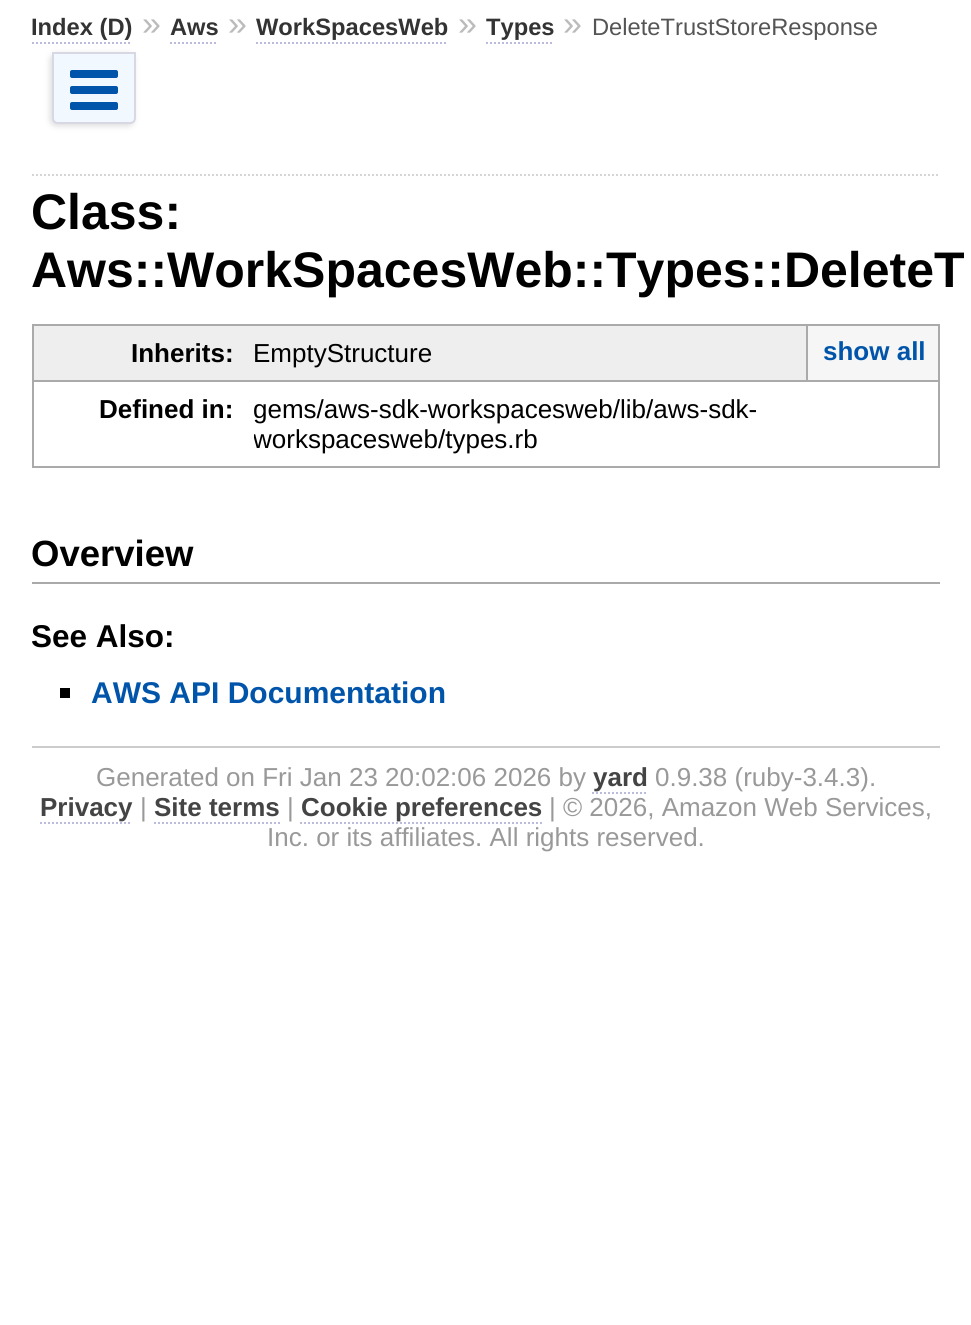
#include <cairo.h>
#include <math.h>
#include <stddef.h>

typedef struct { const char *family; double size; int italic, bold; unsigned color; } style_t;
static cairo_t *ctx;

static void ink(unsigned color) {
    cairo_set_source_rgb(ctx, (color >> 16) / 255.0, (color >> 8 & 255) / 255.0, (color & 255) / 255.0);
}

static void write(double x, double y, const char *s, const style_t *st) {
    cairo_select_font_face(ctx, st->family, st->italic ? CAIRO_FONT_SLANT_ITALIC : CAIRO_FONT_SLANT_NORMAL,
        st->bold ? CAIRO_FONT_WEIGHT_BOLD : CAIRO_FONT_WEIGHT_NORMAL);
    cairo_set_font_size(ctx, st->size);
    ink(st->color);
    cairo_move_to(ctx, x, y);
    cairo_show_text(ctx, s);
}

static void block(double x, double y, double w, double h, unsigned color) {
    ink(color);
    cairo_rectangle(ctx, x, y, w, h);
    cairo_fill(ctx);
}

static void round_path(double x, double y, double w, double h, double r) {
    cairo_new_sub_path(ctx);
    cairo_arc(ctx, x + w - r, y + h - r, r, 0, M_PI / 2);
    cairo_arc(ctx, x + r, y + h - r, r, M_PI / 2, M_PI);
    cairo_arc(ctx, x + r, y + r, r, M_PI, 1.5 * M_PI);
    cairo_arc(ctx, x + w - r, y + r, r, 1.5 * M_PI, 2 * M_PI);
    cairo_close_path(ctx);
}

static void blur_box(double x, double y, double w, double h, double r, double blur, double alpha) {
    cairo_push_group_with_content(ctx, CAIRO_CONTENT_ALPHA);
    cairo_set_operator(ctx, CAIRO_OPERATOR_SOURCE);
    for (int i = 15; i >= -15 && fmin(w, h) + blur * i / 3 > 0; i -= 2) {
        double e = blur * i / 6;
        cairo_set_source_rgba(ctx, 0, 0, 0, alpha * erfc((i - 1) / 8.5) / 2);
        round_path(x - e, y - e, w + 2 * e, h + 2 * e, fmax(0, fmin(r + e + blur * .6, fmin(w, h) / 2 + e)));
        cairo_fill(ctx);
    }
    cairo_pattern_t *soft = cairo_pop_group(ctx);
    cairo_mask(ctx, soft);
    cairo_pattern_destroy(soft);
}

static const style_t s1 = {"Liberation Sans", 23.7, 0, 1, 0x333333};
static const style_t s2 = {"Liberation Sans", 34, 0, 0, 0xbbbbbb};
static const style_t s3 = {"Liberation Sans", 23.7, 0, 0, 0x555555};
static const style_t s4 = {"Liberation Sans", 50, 0, 1, 0x000000};
static const style_t s5 = {"Liberation Sans", 26, 0, 1, 0x000000};
static const style_t s6 = {"Liberation Sans", 26, 0, 0, 0x000000};
static const style_t s7 = {"Liberation Sans", 26, 0, 1, 0x0055aa};
static const style_t s8 = {"Liberation Sans", 36.5, 0, 1, 0x000000};
static const style_t s9 = {"Liberation Sans", 31.5, 0, 1, 0x000000};
static const style_t s10 = {"Liberation Sans", 30, 0, 1, 0x0055aa};
static const style_t s11 = {"Liberation Sans", 26, 0, 0, 0x999999};
static const style_t s12 = {"Liberation Sans", 26, 0, 1, 0x444444};

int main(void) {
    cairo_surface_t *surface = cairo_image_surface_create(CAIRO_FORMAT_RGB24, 971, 1325);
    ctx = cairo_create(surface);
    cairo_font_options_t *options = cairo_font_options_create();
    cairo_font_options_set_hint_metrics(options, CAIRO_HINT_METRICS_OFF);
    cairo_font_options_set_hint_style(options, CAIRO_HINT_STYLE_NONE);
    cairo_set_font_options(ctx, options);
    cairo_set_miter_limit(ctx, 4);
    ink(0xffffff);
    cairo_paint(ctx);
    write(31, 35, "Index (D)", &s1);
    cairo_new_path(ctx);
    cairo_move_to(ctx, 32, 43);
    cairo_line_to(ctx, 132, 43);
    ink(0xbbbbdd);
    cairo_set_dash(ctx, (double[]){2, 2}, 2, 0);
    cairo_stroke(ctx);
    write(142, 35, "»", &s2);
    write(170, 35, "Aws", &s1);
    cairo_new_path(ctx);
    cairo_move_to(ctx, 170, 43);
    cairo_line_to(ctx, 218, 43);
    ink(0xbbbbdd);
    cairo_stroke(ctx);
    write(228, 35, "»", &s2);
    write(256, 35, "WorkSpacesWeb", &s1);
    cairo_new_path(ctx);
    cairo_move_to(ctx, 256, 43);
    cairo_line_to(ctx, 448, 43);
    ink(0xbbbbdd);
    cairo_stroke(ctx);
    write(458, 35, "»", &s2);
    write(486, 35, "Types", &s1);
    cairo_new_path(ctx);
    cairo_move_to(ctx, 486, 43);
    cairo_line_to(ctx, 554, 43);
    ink(0xbbbbdd);
    cairo_stroke(ctx);
    write(563, 35, "»", &s2);
    write(592, 35, "DeleteTrustStoreResponse", &s3);
    ink(0xdddddd);
    blur_box(50, 54, 84, 72, 6, 3, 1);
    ink(0xf1f8ff);
    cairo_new_path(ctx);
    cairo_move_to(ctx, 53, 53);
    cairo_line_to(ctx, 135, 53);
    cairo_line_to(ctx, 135, 118);
    cairo_curve_to(ctx, 135, 121, 133, 123, 130, 123);
    cairo_line_to(ctx, 58, 123);
    cairo_curve_to(ctx, 55, 123, 53, 121, 53, 118);
    cairo_close_path(ctx);
    cairo_fill_preserve(ctx);
    ink(0xd8d8e5);
    cairo_set_dash(ctx, NULL, 0, 0);
    cairo_stroke(ctx);
    ink(0x0055aa);
    round_path(70, 70, 48, 8, 2);
    cairo_fill(ctx);
    round_path(70, 86, 48, 8, 2);
    cairo_fill(ctx);
    round_path(70, 102, 48, 8, 2);
    cairo_fill(ctx);
    cairo_new_path(ctx);
    cairo_move_to(ctx, 32, 175);
    cairo_line_to(ctx, 940, 175);
    ink(0xd5d5d5);
    cairo_set_dash(ctx, (double[]){2, 2}, 2, 0);
    cairo_stroke(ctx);
    write(31, 229, "Class:", &s4);
    write(31, 287, "Aws::WorkSpacesWeb::Types::DeleteT", &s4);
    block(34, 326, 772, 54, 0xeeeeee);
    block(32, 324, 908, 2, 0xaaaaaa);
    block(32, 324, 2, 56, 0xaaaaaa);
    write(131, 362, "Inherits:", &s5);
    block(32, 380, 908, 2, 0xaaaaaa);
    block(938, 324, 2, 144, 0xaaaaaa);
    write(253, 362, "EmptyStructure", &s6);
    block(808, 326, 130, 54, 0xf6f6f6);
    block(806, 326, 2, 54, 0xaaaaaa);
    write(823, 360, "show all", &s7);
    block(32, 466, 222, 2, 0xaaaaaa);
    block(32, 380, 2, 88, 0xaaaaaa);
    write(99, 418, "Defined in:", &s5);
    block(254, 466, 686, 2, 0xaaaaaa);
    write(253, 418, "gems/aws-sdk-workspacesweb/lib/aws-sdk-", &s6);
    cairo_save(ctx);
    cairo_rectangle(ctx, 254, 382, 684, 84);
    cairo_clip(ctx);
    write(253, 448, "workspacesweb/types.rb", &s6);
    cairo_restore(ctx);
    block(32, 582, 908, 2, 0xaaaaaa);
    write(31, 566, "Overview", &s8);
    write(31, 647, "See Also:", &s9);
    block(60, 688, 10, 10, 0x000000);
    write(91, 703, "AWS API Documentation", &s10);
    block(32, 746, 908, 2, 0xcccccc);
    write(96, 786, "Generated on Fri Jan 23 20:02:06 2026 by", &s11);
    write(593, 786, "yard", &s12);
    cairo_new_path(ctx);
    cairo_move_to(ctx, 592, 793);
    cairo_line_to(ctx, 648, 793);
    ink(0xbbbbdd);
    cairo_stroke(ctx);
    write(655, 786, "0.9.38 (ruby-3.4.3).", &s11);
    write(40, 816, "Privacy", &s12);
    cairo_new_path(ctx);
    cairo_move_to(ctx, 40, 823);
    cairo_line_to(ctx, 132, 823);
    ink(0xbbbbdd);
    cairo_stroke(ctx);
    write(140, 816, "|", &s11);
    write(154, 816, "Site terms", &s12);
    cairo_new_path(ctx);
    cairo_move_to(ctx, 154, 823);
    cairo_line_to(ctx, 280, 823);
    ink(0xbbbbdd);
    cairo_stroke(ctx);
    write(287, 816, "|", &s11);
    write(301, 816, "Cookie preferences", &s12);
    cairo_new_path(ctx);
    cairo_move_to(ctx, 300, 823);
    cairo_line_to(ctx, 542, 823);
    ink(0xbbbbdd);
    cairo_stroke(ctx);
    write(549, 816, "| © 2026, Amazon Web Services,", &s11);
    write(267, 846, "Inc. or its affiliates. All rights reserved.", &s11);
    cairo_surface_write_to_png(surface, "screenshot.png");
    cairo_font_options_destroy(options);
    cairo_destroy(ctx);
    cairo_surface_destroy(surface);
    return 0;
}
